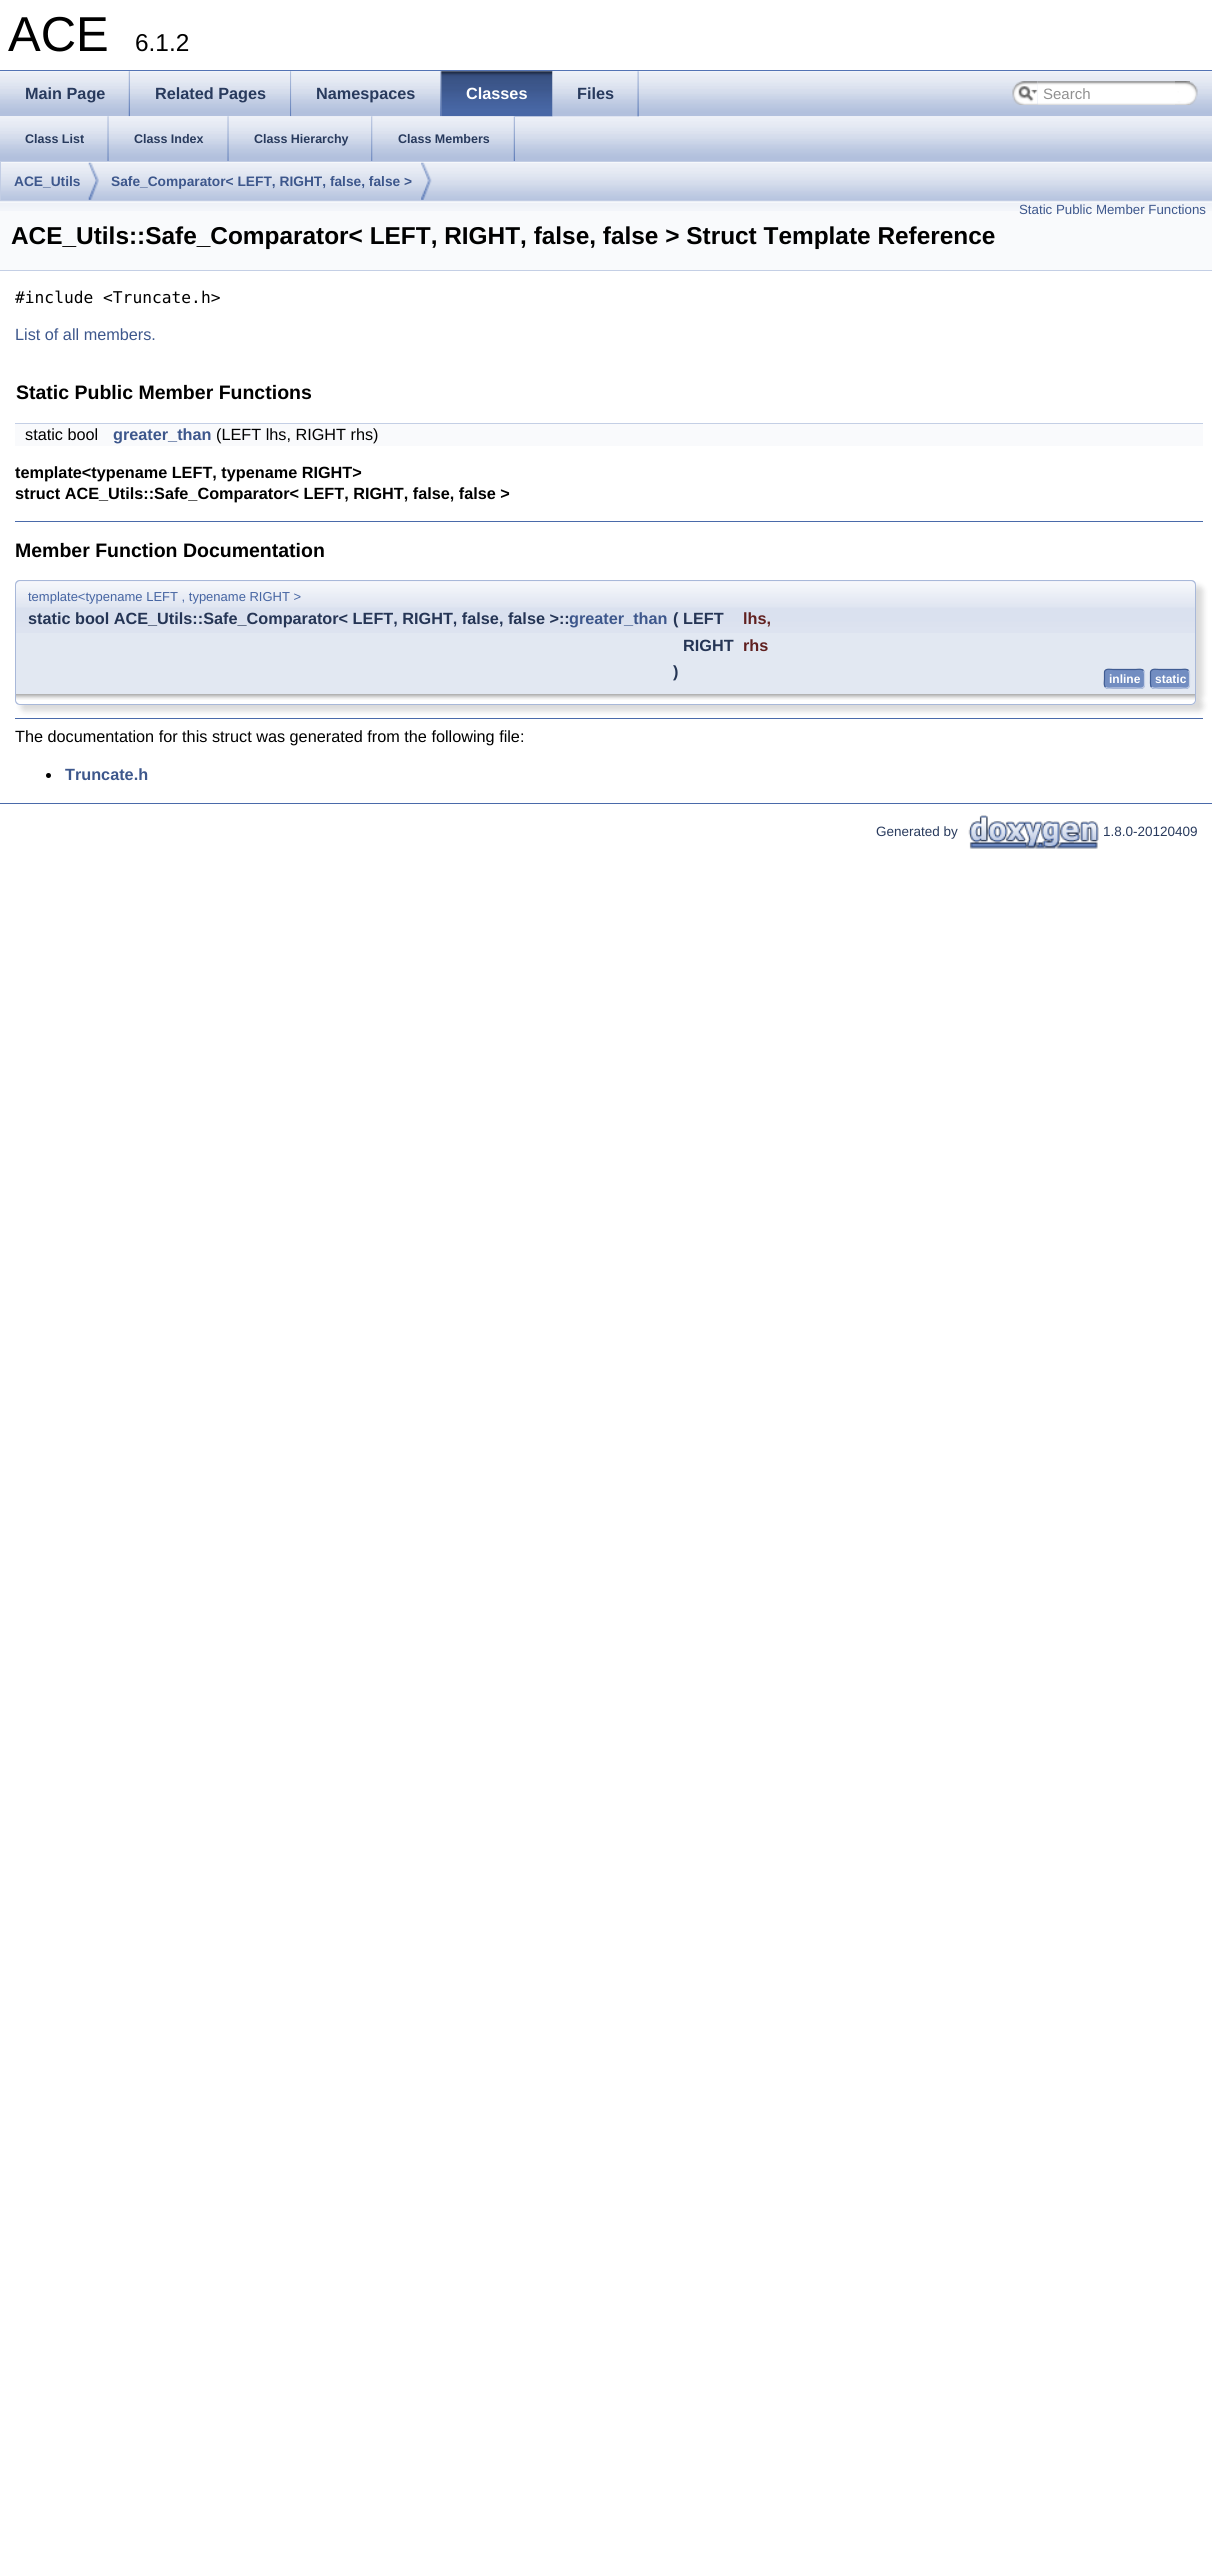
#include <cairo.h>
#include <math.h>
#include <stddef.h>

typedef struct { const char *family; double size; int italic, bold; unsigned color; } style_t;
static cairo_t *ctx;

static void ink(unsigned color) {
    cairo_set_source_rgb(ctx, (color >> 16) / 255.0, (color >> 8 & 255) / 255.0, (color & 255) / 255.0);
}

static void write(double x, double y, const char *s, const style_t *st) {
    cairo_select_font_face(ctx, st->family, st->italic ? CAIRO_FONT_SLANT_ITALIC : CAIRO_FONT_SLANT_NORMAL,
        st->bold ? CAIRO_FONT_WEIGHT_BOLD : CAIRO_FONT_WEIGHT_NORMAL);
    cairo_set_font_size(ctx, st->size);
    ink(st->color);
    cairo_move_to(ctx, x, y);
    cairo_show_text(ctx, s);
}

static void block(double x, double y, double w, double h, unsigned color) {
    ink(color);
    cairo_rectangle(ctx, x, y, w, h);
    cairo_fill(ctx);
}

static void round_path(double x, double y, double w, double h, double r) {
    cairo_new_sub_path(ctx);
    cairo_arc(ctx, x + w - r, y + h - r, r, 0, M_PI / 2);
    cairo_arc(ctx, x + r, y + h - r, r, M_PI / 2, M_PI);
    cairo_arc(ctx, x + r, y + r, r, M_PI, 1.5 * M_PI);
    cairo_arc(ctx, x + w - r, y + r, r, 1.5 * M_PI, 2 * M_PI);
    cairo_close_path(ctx);
}

static void blur_box(double x, double y, double w, double h, double r, double blur, double alpha) {
    cairo_push_group_with_content(ctx, CAIRO_CONTENT_ALPHA);
    cairo_set_operator(ctx, CAIRO_OPERATOR_SOURCE);
    for (int i = 15; i >= -15 && fmin(w, h) + blur * i / 3 > 0; i -= 2) {
        double e = blur * i / 6;
        cairo_set_source_rgba(ctx, 0, 0, 0, alpha * erfc((i - 1) / 8.5) / 2);
        round_path(x - e, y - e, w + 2 * e, h + 2 * e, fmax(0, fmin(r + e + blur * .6, fmin(w, h) / 2 + e)));
        cairo_fill(ctx);
    }
    cairo_pattern_t *soft = cairo_pop_group(ctx);
    cairo_mask(ctx, soft);
    cairo_pattern_destroy(soft);
}

static void paste(const char *path, double x, double y, double w, double h) {
    cairo_surface_t *image = cairo_image_surface_create_from_png(path);
    cairo_save(ctx);
    cairo_set_source_surface(ctx, image, x, y);
    cairo_rectangle(ctx, x, y, w, h);
    cairo_fill(ctx);
    cairo_restore(ctx);
    cairo_surface_destroy(image);
}

static const style_t s1 = {"Liberation Sans", 49, 0, 0, 0x000000};
static const style_t s2 = {"Liberation Sans", 24.4, 0, 0, 0x000000};
static const style_t s3 = {"Liberation Sans", 16.25, 0, 1, 0x283a5d};
static const style_t s4 = {"Liberation Sans", 16.25, 0, 1, 0xffffff};
static const style_t s5 = {"Liberation Sans", 15, 0, 0, 0x909090};
static const style_t s6 = {"Liberation Sans", 12.5, 0, 1, 0x283a5d};
static const style_t s7 = {"Liberation Sans", 13.75, 0, 1, 0x3d578c};
static const style_t s8 = {"Liberation Sans", 13.3, 0, 0, 0x3d578c};
static const style_t s9 = {"Liberation Sans", 24.4, 0, 1, 0x000000};
static const style_t s10 = {"DejaVu Sans Mono", 16.25, 0, 0, 0x000000};
static const style_t s11 = {"Liberation Sans", 16.25, 0, 0, 0x3d578c};
static const style_t s12 = {"Liberation Sans", 19.5, 0, 1, 0x000000};
static const style_t s13 = {"Liberation Sans", 16.25, 0, 0, 0x000000};
static const style_t s14 = {"Liberation Sans", 16.25, 0, 1, 0x3d578c};
static const style_t s15 = {"Liberation Sans", 16.25, 0, 1, 0x000000};
static const style_t s16 = {"Liberation Sans", 13, 0, 0, 0x4665a2};
static const style_t s17 = {"Liberation Sans", 16.25, 0, 1, 0x253555};
static const style_t s18 = {"Liberation Sans", 16.25, 0, 1, 0x602020};
static const style_t s19 = {"Liberation Sans", 12, 0, 1, 0xffffff};
static const style_t s20 = {"Liberation Sans", 13.5, 0, 0, 0x283a5d};

int main(void) {
    cairo_surface_t *surface = cairo_image_surface_create(CAIRO_FORMAT_RGB24, 1212, 2553);
    ctx = cairo_create(surface);
    cairo_font_options_t *options = cairo_font_options_create();
    cairo_font_options_set_hint_metrics(options, CAIRO_HINT_METRICS_OFF);
    cairo_font_options_set_hint_style(options, CAIRO_HINT_STYLE_NONE);
    cairo_set_font_options(ctx, options);
    cairo_set_miter_limit(ctx, 4);
    ink(0xffffff);
    cairo_paint(ctx);
    block(0, 70, 1212, 1, 0x5373b4);
    write(8, 51, "ACE", &s1);
    write(135, 51, "6.1.2", &s2);
    paste("pic1.png", 0, 71, 1212, 46);
    paste("pic2.png", 128, 71, 2, 46);
    write(25, 99, "Main Page", &s3);
    paste("pic3.png", 290, 71, 2, 46);
    write(155, 99, "Related Pages", &s3);
    paste("pic4.png", 291, 71, 150, 46);
    paste("pic5.png", 440, 71, 2, 46);
    write(316, 99, "Namespaces", &s3);
    paste("pic6.png", 441, 71, 112, 46);
    paste("pic7.png", 441, 71, 112, 46);
    write(466, 99, "Classes", &s4);
    paste("pic8.png", 552, 71, 87, 46);
    paste("pic9.png", 637, 71, 2, 46);
    write(577, 99, "Files", &s3);
    paste("pic10.png", 1012, 81, 26, 24);
    paste("pic11.png", 1018, 86, 20, 16);
    paste("pic12.png", 1037, 81, 153, 24);
    write(1043, 99, "Search", &s5);
    paste("pic13.png", 1175, 81, 23, 24);
    paste("pic14.png", 108, 117, 1104, 44);
    paste("pic15.png", 0, 116, 109, 45);
    paste("pic16.png", 107, 116, 2, 45);
    write(25, 143, "Class List", &s6);
    paste("pic17.png", 108, 116, 121, 45);
    paste("pic16.png", 227, 116, 2, 45);
    write(134, 143, "Class Index", &s6);
    paste("pic18.png", 228, 116, 145, 45);
    paste("pic19.png", 371, 116, 2, 45);
    write(254, 143, "Class Hierarchy", &s6);
    paste("pic20.png", 372, 116, 143, 45);
    paste("pic21.png", 513, 116, 2, 45);
    write(398, 143, "Class Members", &s6);
    block(0, 201, 1212, 69, 0xf9fafc);
    paste("pic25.png", 0, 201, 1212, 10);
    paste("pic22.png", 0, 162, 1212, 40);
    cairo_rectangle(ctx, 0.5, 161.5, 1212, 39);
    ink(0xc2cde4);
    cairo_set_line_width(ctx, 1);
    cairo_stroke(ctx);
    paste("pic23.png", 88, 162, 11, 38);
    write(14, 186, "ACE_Utils", &s7);
    paste("pic24.png", 421, 162, 11, 38);
    write(111, 186, "Safe_Comparator< LEFT, RIGHT, false, false >", &s7);
    block(0, 270, 1212, 1, 0xc4cfe5);
    write(1019, 214, "Static Public Member Functions", &s8);
    write(11, 244, "ACE_Utils::Safe_Comparator< LEFT, RIGHT, false, false > Struct Template Reference", &s9);
    write(15, 303, "#include <Truncate.h>", &s10);
    write(15, 340, "List of all members.", &s11);
    write(16, 399, "Static Public Member Functions", &s12);
    block(15, 424, 1188, 22, 0xf9fafc);
    block(15, 423, 1188, 1, 0xc4cfe5);
    write(25, 440, "static bool", &s13);
    write(113, 440, "greater_than", &s14);
    write(216, 440, "(LEFT lhs, RIGHT rhs)", &s13);
    write(15, 478, "template<typename LEFT, typename RIGHT>", &s15);
    write(15, 499, "struct ACE_Utils::Safe_Comparator< LEFT, RIGHT, false, false >", &s15);
    block(15, 521, 1188, 1, 0x4a6aaa);
    write(15, 557, "Member Function Documentation", &s12);
    ink(0x000000);
    blur_box(21, 586, 1182, 114, 5, 3, 0.15);
    ink(0xe2e8f2);
    cairo_new_path(ctx);
    cairo_move_to(ctx, 20, 580);
    cairo_line_to(ctx, 1191, 580);
    cairo_curve_to(ctx, 1194, 580, 1196, 582, 1196, 585);
    cairo_line_to(ctx, 1196, 694);
    cairo_line_to(ctx, 15, 694);
    cairo_line_to(ctx, 15, 585);
    cairo_curve_to(ctx, 15, 582, 17, 580, 20, 580);
    cairo_close_path(ctx);
    cairo_fill(ctx);
    paste("pic26.png", 15, 581, 1181, 52);
    ink(0xa8b8d9);
    cairo_set_fill_rule(ctx, CAIRO_FILL_RULE_EVEN_ODD);
    cairo_new_path(ctx);
    cairo_move_to(ctx, 20, 580);
    cairo_line_to(ctx, 1191, 580);
    cairo_curve_to(ctx, 1194, 580, 1196, 582, 1196, 585);
    cairo_line_to(ctx, 1196, 694);
    cairo_line_to(ctx, 15, 694);
    cairo_line_to(ctx, 15, 585);
    cairo_curve_to(ctx, 15, 582, 17, 580, 20, 580);
    cairo_close_path(ctx);
    cairo_move_to(ctx, 20, 581);
    cairo_line_to(ctx, 1191, 581);
    cairo_curve_to(ctx, 1193, 581, 1195, 583, 1195, 585);
    cairo_line_to(ctx, 1195, 694);
    cairo_line_to(ctx, 16, 694);
    cairo_line_to(ctx, 16, 585);
    cairo_curve_to(ctx, 16, 583, 18, 581, 20, 581);
    cairo_close_path(ctx);
    cairo_fill(ctx);
    write(28, 601, "template<typename LEFT , typename RIGHT >", &s16);
    write(28, 624, "static bool ACE_Utils::Safe_Comparator< LEFT, RIGHT, false, false >::", &s17);
    write(569, 624, "greater_than", &s14);
    write(673, 624, "(", &s17);
    write(683, 624, "LEFT", &s17);
    write(743, 624, "lhs,", &s18);
    write(683, 651, "RIGHT", &s17);
    write(743, 651, "rhs", &s18);
    write(673, 677, ")", &s17);
    ink(0x728dc1);
    round_path(1104, 669, 41, 20, 4);
    cairo_fill(ctx);
    cairo_new_path(ctx);
    cairo_move_to(ctx, 1143.5, 670.5);
    cairo_curve_to(ctx, 1145, 672, 1144.5, 676.5, 1144.5, 679);
    cairo_line_to(ctx, 1144.5, 685.5);
    cairo_curve_to(ctx, 1143.5, 689.5, 1138, 688, 1135.5, 688);
    cairo_line_to(ctx, 1113, 688);
    cairo_curve_to(ctx, 1111.5, 688, 1107, 689, 1105.5, 687);
    ink(0xc4cfe5);
    cairo_set_line_width(ctx, 1.2);
    cairo_stroke(ctx);
    cairo_new_path(ctx);
    cairo_move_to(ctx, 1105.5, 687);
    cairo_curve_to(ctx, 1103.5, 685.5, 1104.5, 681, 1104.5, 679);
    cairo_line_to(ctx, 1104.5, 672);
    cairo_curve_to(ctx, 1105, 668, 1111, 669.5, 1113, 669.5);
    cairo_line_to(ctx, 1135.5, 669.5);
    cairo_curve_to(ctx, 1137, 669.5, 1141.5, 668.5, 1143.5, 670.5);
    ink(0x405c93);
    cairo_stroke(ctx);
    write(1109, 683, "inline", &s19);
    ink(0x728dc1);
    round_path(1150, 669, 40, 20, 4);
    cairo_fill(ctx);
    cairo_new_path(ctx);
    cairo_move_to(ctx, 1188.5, 670.5);
    cairo_curve_to(ctx, 1190, 672, 1189.5, 676.5, 1189.5, 679);
    cairo_line_to(ctx, 1189.5, 685.5);
    cairo_curve_to(ctx, 1188.5, 689.5, 1183, 688, 1181, 688);
    cairo_line_to(ctx, 1159, 688);
    cairo_curve_to(ctx, 1157.5, 688, 1153.5, 689, 1151.5, 687);
    ink(0xc4cfe5);
    cairo_stroke(ctx);
    cairo_new_path(ctx);
    cairo_move_to(ctx, 1151.5, 687);
    cairo_curve_to(ctx, 1150, 685.5, 1150.5, 681, 1150.5, 679);
    cairo_line_to(ctx, 1150.5, 672);
    cairo_curve_to(ctx, 1151.5, 668, 1157, 669.5, 1159, 669.5);
    cairo_line_to(ctx, 1181, 669.5);
    cairo_curve_to(ctx, 1182.5, 669.5, 1186.5, 668.5, 1188.5, 670.5);
    ink(0x405c93);
    cairo_stroke(ctx);
    write(1155, 683, "static", &s19);
    ink(0x000000);
    blur_box(21, 700, 1182, 11, 5, 3, 0.15);
    ink(0xffffff);
    cairo_new_path(ctx);
    cairo_move_to(ctx, 15, 694);
    cairo_line_to(ctx, 1196, 694);
    cairo_line_to(ctx, 1196, 700);
    cairo_curve_to(ctx, 1196, 703, 1194, 705, 1191, 705);
    cairo_line_to(ctx, 20, 705);
    cairo_curve_to(ctx, 17, 705, 15, 703, 15, 700);
    cairo_close_path(ctx);
    cairo_fill(ctx);
    paste("pic27.png", 16, 694, 1179, 6);
    ink(0xa8b8d9);
    cairo_new_path(ctx);
    cairo_move_to(ctx, 15, 694);
    cairo_line_to(ctx, 1196, 694);
    cairo_line_to(ctx, 1196, 700);
    cairo_curve_to(ctx, 1196, 703, 1194, 705, 1191, 705);
    cairo_line_to(ctx, 20, 705);
    cairo_curve_to(ctx, 17, 705, 15, 703, 15, 700);
    cairo_close_path(ctx);
    cairo_move_to(ctx, 16, 694);
    cairo_line_to(ctx, 1195, 694);
    cairo_line_to(ctx, 1195, 700);
    cairo_curve_to(ctx, 1195, 702, 1193, 704, 1191, 704);
    cairo_line_to(ctx, 20, 704);
    cairo_curve_to(ctx, 18, 704, 16, 702, 16, 700);
    cairo_close_path(ctx);
    cairo_fill(ctx);
    block(15, 718, 1188, 1, 0x4a6aaa);
    write(15, 742, "The documentation for this struct was generated from the following file:", &s13);
    cairo_new_path(ctx);
    cairo_arc(ctx, 48.5, 775.5, 2.5, 0, 2 * M_PI);
    cairo_fill(ctx);
    write(65, 780, "Truncate.h", &s14);
    block(0, 803, 1212, 1, 0x4a6aaa);
    write(876, 836, "Generated by", &s20);
    paste("pic28.png", 968, 815, 131, 34);
    write(1103, 836, "1.8.0-20120409", &s20);
    cairo_surface_write_to_png(surface, "screenshot.png");
    cairo_font_options_destroy(options);
    cairo_destroy(ctx);
    cairo_surface_destroy(surface);
    return 0;
}
